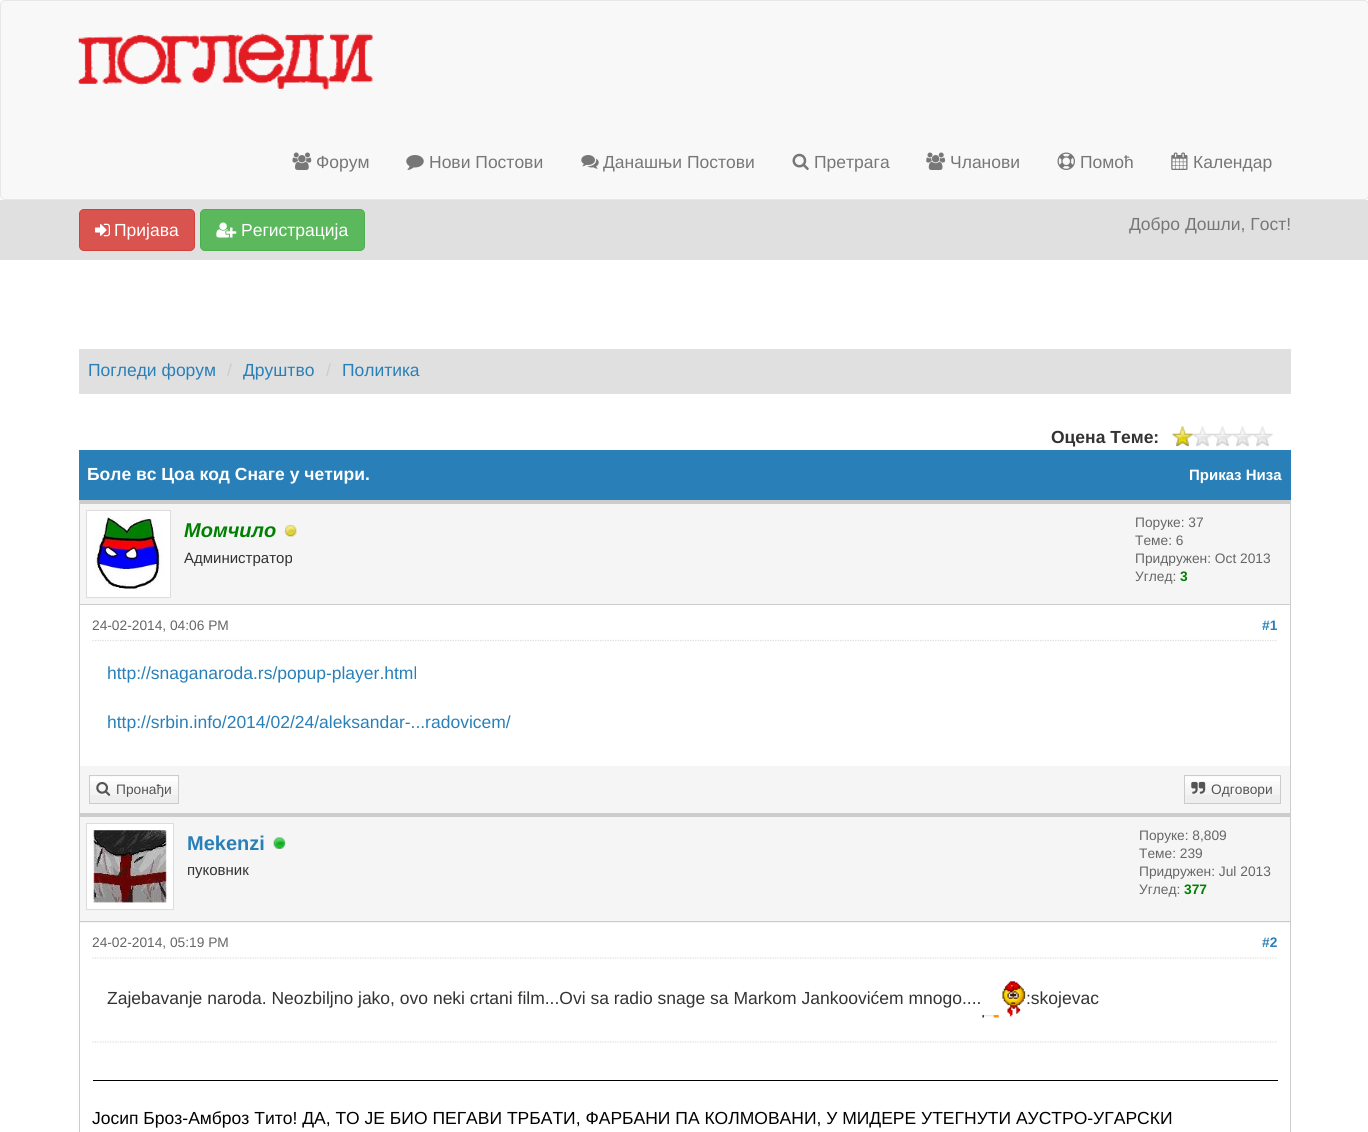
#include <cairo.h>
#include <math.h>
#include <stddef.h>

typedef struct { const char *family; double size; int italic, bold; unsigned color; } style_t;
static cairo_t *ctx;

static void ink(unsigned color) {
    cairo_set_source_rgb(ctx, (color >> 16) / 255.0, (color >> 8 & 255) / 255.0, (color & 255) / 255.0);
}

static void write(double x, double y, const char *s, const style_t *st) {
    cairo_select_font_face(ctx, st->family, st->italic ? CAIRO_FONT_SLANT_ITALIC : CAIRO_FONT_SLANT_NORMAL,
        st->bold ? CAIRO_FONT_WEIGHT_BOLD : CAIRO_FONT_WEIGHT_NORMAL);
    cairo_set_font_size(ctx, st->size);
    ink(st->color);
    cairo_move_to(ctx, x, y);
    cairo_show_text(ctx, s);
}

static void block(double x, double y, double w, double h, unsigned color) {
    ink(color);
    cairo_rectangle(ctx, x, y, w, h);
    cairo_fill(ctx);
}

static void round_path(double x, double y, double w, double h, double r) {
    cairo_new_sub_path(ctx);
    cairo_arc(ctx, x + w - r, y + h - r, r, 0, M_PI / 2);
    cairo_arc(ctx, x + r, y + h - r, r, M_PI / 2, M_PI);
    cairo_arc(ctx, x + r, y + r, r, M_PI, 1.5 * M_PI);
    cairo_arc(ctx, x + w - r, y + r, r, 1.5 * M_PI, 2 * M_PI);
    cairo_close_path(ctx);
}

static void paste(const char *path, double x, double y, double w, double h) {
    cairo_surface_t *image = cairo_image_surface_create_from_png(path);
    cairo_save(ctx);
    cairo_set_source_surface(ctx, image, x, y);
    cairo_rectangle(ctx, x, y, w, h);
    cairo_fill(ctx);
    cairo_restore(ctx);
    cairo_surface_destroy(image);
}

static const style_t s1 = {"Liberation Sans", 17.5, 0, 0, 0x777777};
static const style_t s2 = {"Liberation Sans", 17.5, 0, 0, 0xffffff};
static const style_t s3 = {"Liberation Sans", 17.5, 0, 0, 0x2980b9};
static const style_t s4 = {"Liberation Sans", 17.5, 0, 0, 0xcccccc};
static const style_t s5 = {"Liberation Sans", 17.5, 0, 1, 0x333333};
static const style_t s6 = {"Liberation Sans", 17.5, 0, 1, 0xffffff};
static const style_t s7 = {"Liberation Sans", 15, 0, 1, 0xffffff};
static const style_t s8 = {"Liberation Sans", 20, 1, 1, 0x008000};
static const style_t s9 = {"Liberation Sans", 15, 0, 0, 0x333333};
static const style_t s10 = {"Liberation Sans", 13.75, 0, 0, 0x666666};
static const style_t s11 = {"Liberation Sans", 13.75, 0, 1, 0x008000};
static const style_t s12 = {"Liberation Sans", 13.75, 0, 1, 0x2980b9};
static const style_t s13 = {"Liberation Sans", 13.75, 0, 0, 0x555555};
static const style_t s14 = {"Liberation Sans", 20, 0, 1, 0x2980b9};
static const style_t s15 = {"Liberation Sans", 17.5, 0, 0, 0x333333};
static const style_t s16 = {"Liberation Sans", 17.5, 0, 0, 0x000000};

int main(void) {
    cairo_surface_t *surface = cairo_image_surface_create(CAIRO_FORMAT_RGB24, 1368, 1132);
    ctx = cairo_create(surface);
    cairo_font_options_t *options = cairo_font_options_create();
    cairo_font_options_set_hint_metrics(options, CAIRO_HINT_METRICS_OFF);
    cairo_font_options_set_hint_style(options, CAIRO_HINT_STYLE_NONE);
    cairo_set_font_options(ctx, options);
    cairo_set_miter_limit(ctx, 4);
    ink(0xffffff);
    cairo_paint(ctx);
    ink(0xf8f8f8);
    round_path(0.5, 0.5, 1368, 199, 4.5);
    cairo_fill_preserve(ctx);
    ink(0xe7e7e7);
    cairo_set_line_width(ctx, 1);
    cairo_stroke(ctx);
    paste("pic1.png", 78, 33, 295, 58);
    paste("pic2.png", 292, 152, 20, 18);
    write(316, 168, "Форум", &s1);
    paste("pic3.png", 406, 155, 18, 15);
    write(429, 168, "Нови Постови", &s1);
    paste("pic4.png", 581, 155, 18, 14);
    write(603, 168, "Данашњи Постови", &s1);
    paste("pic5.png", 792, 153, 17, 17);
    write(814, 168, "Претрага", &s1);
    paste("pic6.png", 926, 152, 19, 18);
    write(950, 168, "Чланови", &s1);
    paste("pic7.png", 1057, 152, 18, 18);
    write(1080, 168, "Помоћ", &s1);
    paste("pic8.png", 1171, 152, 17, 18);
    write(1193, 168, "Календар", &s1);
    block(0, 200, 1368, 60, 0xe0e0e0);
    ink(0xd9534f);
    round_path(79.5, 209.5, 115, 41, 4.5);
    cairo_fill_preserve(ctx);
    ink(0xd43f3a);
    cairo_stroke(ctx);
    paste("pic9.png", 95, 223, 15, 14);
    write(114, 236, "Пријава", &s2);
    ink(0x5cb85c);
    round_path(200.5, 209.5, 164, 41, 4.5);
    cairo_fill_preserve(ctx);
    ink(0x4cae4c);
    cairo_stroke(ctx);
    paste("pic10.png", 216, 222, 21, 16);
    write(241, 236, "Регистрација", &s2);
    write(1129, 230, "Добро Дошли, Гост!", &s1);
    block(79, 349, 1212, 45, 0xe0e0e0);
    write(88, 376, "Погледи форум", &s3);
    write(227, 376, "/", &s4);
    write(243, 376, "Друштво", &s3);
    write(326, 376, "/", &s4);
    write(342, 376, "Политика", &s3);
    write(1051, 443, "Оцена Теме:", &s5);
    paste("pic11.png", 1172, 426, 101, 21);
    paste("pic12.png", 1172, 426, 21, 21);
    block(79, 450, 1212, 50, 0x2980b9);
    write(87, 480, "Боле вс Цоа код Снаге у четири.", &s6);
    write(1189, 480, "Приказ Низа", &s7);
    cairo_rectangle(ctx, 79.5, 500.5, 1211, 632);
    ink(0xcccccc);
    cairo_stroke(ctx);
    block(80, 504, 1210, 100, 0xf5f5f5);
    block(80, 501, 1210, 3, 0xcccccc);
    block(80, 604, 1210, 1, 0xcccccc);
    ink(0xffffff);
    cairo_rectangle(ctx, 86.5, 510.5, 84, 87);
    cairo_fill_preserve(ctx);
    ink(0xdddddd);
    cairo_stroke(ctx);
    paste("pic13.png", 94, 517, 70, 73);
    write(184, 537, "Момчило", &s8);
    paste("pic14.png", 284, 524, 13, 13);
    write(184, 563, "Администратор", &s9);
    write(1135, 527, "Поруке: 37", &s10);
    write(1135, 545, "Теме: 6", &s10);
    write(1135, 563, "Придружен: Oct 2013", &s10);
    write(1135, 581, "Углед:", &s10);
    write(1180, 581, "3", &s11);
    cairo_new_path(ctx);
    cairo_move_to(ctx, 92.5, 640.5);
    cairo_line_to(ctx, 1277.5, 640.5);
    ink(0xdddddd);
    cairo_set_line_width(ctx, 1.2);
    cairo_set_dash(ctx, (double[]){1.25, 1.25}, 2, 0);
    cairo_stroke(ctx);
    write(92, 630, "24-02-2014, 04:06 PM", &s10);
    write(1262, 630, "#1", &s12);
    write(107, 679, "http://snaganaroda.rs/popup-player.html", &s3);
    write(107, 728, "http://srbin.info/2014/02/24/aleksandar-...radovicem/", &s3);
    block(80, 766, 1210, 47, 0xf5f5f5);
    block(80, 813, 1210, 4, 0xcccccc);
    block(90, 776, 88, 27, 0xeeeeee);
    paste("pic15.png", 90, 776, 88, 19);
    cairo_rectangle(ctx, 89.5, 775.5, 89, 28);
    ink(0xcccccc);
    cairo_set_line_width(ctx, 1);
    cairo_set_dash(ctx, NULL, 0, 0);
    cairo_stroke(ctx);
    paste("pic16.png", 96, 782, 15, 14);
    write(116, 794, "Пронађи", &s13);
    block(1185, 776, 95, 27, 0xeeeeee);
    paste("pic17.png", 1185, 776, 95, 19);
    cairo_rectangle(ctx, 1184.5, 775.5, 96, 28);
    ink(0xcccccc);
    cairo_stroke(ctx);
    paste("pic18.png", 1191, 781, 15, 13);
    write(1211, 794, "Одговори", &s13);
    block(80, 817, 1210, 106, 0xf5f5f5);
    block(80, 921, 1210, 1, 0xcccccc);
    ink(0xffffff);
    cairo_rectangle(ctx, 86.5, 823.5, 87, 86);
    cairo_fill_preserve(ctx);
    ink(0xdddddd);
    cairo_stroke(ctx);
    paste("pic19.png", 93, 830, 74, 73);
    write(187, 850, "Mekenzi", &s14);
    paste("pic20.png", 273, 837, 13, 12);
    write(187, 875, "пуковник", &s9);
    write(1139, 840, "Поруке: 8,809", &s10);
    write(1139, 858, "Теме: 239", &s10);
    write(1139, 876, "Придружен: Jul 2013", &s10);
    write(1139, 894, "Углед:", &s10);
    write(1184, 894, "377", &s11);
    cairo_new_path(ctx);
    cairo_move_to(ctx, 92.5, 958);
    cairo_line_to(ctx, 1277.5, 958);
    ink(0xdddddd);
    cairo_set_line_width(ctx, 1.2);
    cairo_set_dash(ctx, (double[]){1.25, 1.25}, 2, 0);
    cairo_stroke(ctx);
    write(92, 947, "24-02-2014, 05:19 PM", &s10);
    write(1262, 947, "#2", &s12);
    write(107, 1004, "Zajebavanje naroda. Neozbiljno jako, ovo neki crtani film...Ovi sa radio snage sa Markom Jankoovićem mnogo....", &s15);
    paste("pic21.png", 982, 981, 44, 37);
    write(1026, 1004, ":skojevac", &s15);
    cairo_new_path(ctx);
    cairo_move_to(ctx, 92.5, 1042);
    cairo_line_to(ctx, 1277.5, 1042);
    ink(0xdddddd);
    cairo_stroke(ctx);
    block(93, 1080, 1185, 1, 0x000000);
    write(92, 1124, "Јосип Броз-Амброз Тито! ДА, ТО ЈЕ БИО ПЕГАВИ ТРБАТИ, ФАРБАНИ ПА КОЛМОВАНИ, У МИДЕРЕ УТЕГНУТИ АУСТРО-УГАРСКИ", &s16);
    cairo_surface_write_to_png(surface, "screenshot.png");
    cairo_font_options_destroy(options);
    cairo_destroy(ctx);
    cairo_surface_destroy(surface);
    return 0;
}
